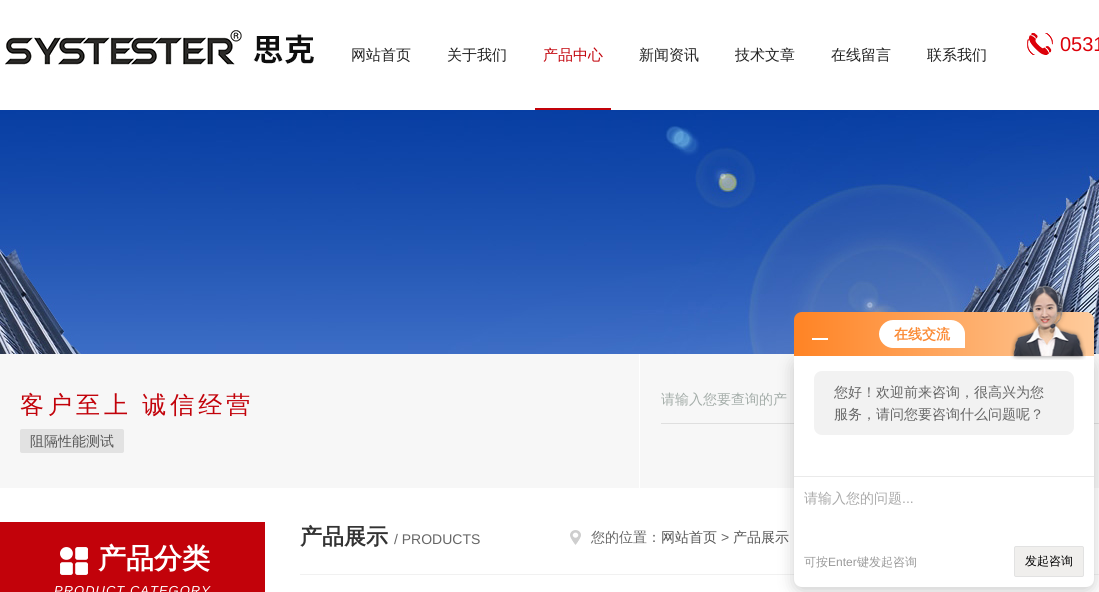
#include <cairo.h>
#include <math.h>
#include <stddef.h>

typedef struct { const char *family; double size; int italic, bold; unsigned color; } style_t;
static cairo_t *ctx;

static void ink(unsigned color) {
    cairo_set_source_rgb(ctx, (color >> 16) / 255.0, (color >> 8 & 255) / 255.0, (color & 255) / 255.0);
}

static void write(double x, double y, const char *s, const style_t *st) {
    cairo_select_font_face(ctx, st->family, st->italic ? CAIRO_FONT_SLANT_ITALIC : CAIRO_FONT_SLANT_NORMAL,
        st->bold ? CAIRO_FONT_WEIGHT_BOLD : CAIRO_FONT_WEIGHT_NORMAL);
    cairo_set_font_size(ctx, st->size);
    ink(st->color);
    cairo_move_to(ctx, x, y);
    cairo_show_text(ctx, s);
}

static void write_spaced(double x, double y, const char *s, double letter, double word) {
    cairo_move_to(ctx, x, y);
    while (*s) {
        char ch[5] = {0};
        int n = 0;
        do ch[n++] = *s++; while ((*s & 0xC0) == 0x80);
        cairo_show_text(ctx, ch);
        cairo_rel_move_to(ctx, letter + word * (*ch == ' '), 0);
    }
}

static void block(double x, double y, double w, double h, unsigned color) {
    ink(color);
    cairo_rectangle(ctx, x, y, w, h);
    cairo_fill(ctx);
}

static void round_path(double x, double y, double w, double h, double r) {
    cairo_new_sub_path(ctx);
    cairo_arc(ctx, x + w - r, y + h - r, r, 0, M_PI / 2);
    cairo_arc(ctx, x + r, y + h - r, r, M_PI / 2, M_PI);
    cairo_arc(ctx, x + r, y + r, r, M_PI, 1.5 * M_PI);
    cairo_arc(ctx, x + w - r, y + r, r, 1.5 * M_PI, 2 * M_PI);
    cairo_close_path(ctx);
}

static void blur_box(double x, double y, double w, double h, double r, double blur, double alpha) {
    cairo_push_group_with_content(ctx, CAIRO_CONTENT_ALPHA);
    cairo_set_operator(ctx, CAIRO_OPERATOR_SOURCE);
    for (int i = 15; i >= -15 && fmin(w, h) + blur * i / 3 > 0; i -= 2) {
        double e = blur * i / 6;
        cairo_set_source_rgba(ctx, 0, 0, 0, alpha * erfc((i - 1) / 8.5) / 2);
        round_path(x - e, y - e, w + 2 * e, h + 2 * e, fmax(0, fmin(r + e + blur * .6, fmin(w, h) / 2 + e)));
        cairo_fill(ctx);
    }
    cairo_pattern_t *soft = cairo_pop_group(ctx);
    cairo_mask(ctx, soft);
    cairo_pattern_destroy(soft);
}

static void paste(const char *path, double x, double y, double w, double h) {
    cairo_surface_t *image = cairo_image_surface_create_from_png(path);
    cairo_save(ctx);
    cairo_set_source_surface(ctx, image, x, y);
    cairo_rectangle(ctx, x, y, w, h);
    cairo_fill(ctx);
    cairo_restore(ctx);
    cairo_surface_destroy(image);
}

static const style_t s1 = {"Liberation Sans", 20, 0, 0, 0xdc0009};
static const style_t s2 = {"WenQuanYi Zen Hei Medium", 15, 0, 0, 0x222222};
static const style_t s3 = {"WenQuanYi Zen Hei Medium", 15, 0, 0, 0xc2020a};
static const style_t s4 = {"WenQuanYi Zen Hei Medium", 14, 0, 0, 0x555555};
static const style_t s5 = {"WenQuanYi Zen Hei Medium", 14, 0, 0, 0xa4ada9};
static const style_t s6 = {"WenQuanYi Zen Hei", 14, 0, 1, 0xfb8b36};
static const style_t s7 = {"WenQuanYi Zen Hei Medium", 14, 0, 0, 0x666666};
static const style_t s8 = {"WenQuanYi Zen Hei Medium", 14, 0, 0, 0xaaaaaa};
static const style_t s9 = {"Liberation Sans", 14, 0, 0, 0xaaaaaa};
static const style_t s10 = {"WenQuanYi Zen Hei Medium", 12, 0, 0, 0x999999};
static const style_t s11 = {"Liberation Sans", 12, 0, 0, 0x999999};
static const style_t s12 = {"WenQuanYi Zen Hei Medium", 12, 0, 0, 0x000000};
static const style_t s13 = {"WenQuanYi Zen Hei", 22, 0, 1, 0x333333};
static const style_t s14 = {"Liberation Sans", 14, 0, 0, 0x666666};
static const style_t s15 = {"WenQuanYi Zen Hei", 28, 0, 1, 0xffffff};

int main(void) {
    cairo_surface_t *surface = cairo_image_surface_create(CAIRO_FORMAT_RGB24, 1099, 592);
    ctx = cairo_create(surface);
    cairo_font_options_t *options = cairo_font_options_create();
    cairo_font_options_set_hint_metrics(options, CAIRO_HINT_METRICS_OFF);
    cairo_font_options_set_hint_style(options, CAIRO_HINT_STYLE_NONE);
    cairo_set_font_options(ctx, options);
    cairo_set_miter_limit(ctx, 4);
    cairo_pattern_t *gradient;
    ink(0xffffff);
    cairo_paint(ctx);
    paste("pic1.png", 5, 30, 309, 35);
    paste("pic2.png", 1027, 33, 26, 22);
    write(1060, 51, "0531", &s1);
    write(351, 60, "网站首页", &s2);
    write(447, 60, "关于我们", &s2);
    write(543, 60, "产品中心", &s3);
    block(535, 108, 76, 2, 0xc2020a);
    write(639, 60, "新闻资讯", &s2);
    write(735, 60, "技术文章", &s2);
    write(831, 60, "在线留言", &s2);
    write(927, 60, "联系我们", &s2);
    paste("pic3.png", 0, 110, 1099, 244);
    block(0, 354, 1099, 134, 0xf7f7f7);
    block(639, 354, 1, 134, 0xffffff);
    cairo_set_font_size(ctx, 24);
    ink(0xc2020a);
    write_spaced(20, 413, "客户至上 诚信经营", 4, -1);
    ink(0xe2e2e2);
    round_path(20, 429, 104, 24, 2);
    cairo_fill(ctx);
    write(30, 446, "阻隔性能测试", &s4);
    block(660, 423, 439, 1, 0xdfdfdf);
    block(660, 423, 1, 1, 0xf7f7f7);
    write(661, 404, "请输入您要查询的产", &s5);
    block(300, 574, 799, 1, 0xf1f1f1);
    ink(0x000000);
    blur_box(794, 360, 300, 231, 8, 8, 0.2);
    gradient = cairo_pattern_create_linear(794, 334, 1094, 334);
    cairo_pattern_add_color_stop_rgba(gradient, 0, 1, 0.514, 0.141, 1);
    cairo_pattern_add_color_stop_rgba(gradient, 1, 0.996, 0.796, 0.612, 1);
    cairo_set_source(ctx, gradient);
    cairo_pattern_destroy(gradient);
    cairo_new_path(ctx);
    cairo_move_to(ctx, 802, 312);
    cairo_line_to(ctx, 1086, 312);
    cairo_curve_to(ctx, 1090.5, 312, 1094, 315.5, 1094, 320);
    cairo_line_to(ctx, 1094, 356);
    cairo_line_to(ctx, 794, 356);
    cairo_line_to(ctx, 794, 320);
    cairo_curve_to(ctx, 794, 315.5, 797.5, 312, 802, 312);
    cairo_close_path(ctx);
    cairo_fill(ctx);
    block(812, 338, 16, 2, 0xffffff);
    cairo_new_path(ctx);
    cairo_move_to(ctx, 893, 320);
    cairo_line_to(ctx, 951, 320);
    cairo_curve_to(ctx, 958.5, 320, 965, 326.5, 965, 334);
    cairo_line_to(ctx, 965, 348);
    cairo_line_to(ctx, 893, 348);
    cairo_curve_to(ctx, 885.5, 348, 879, 341.5, 879, 334);
    cairo_curve_to(ctx, 879, 326.5, 885.5, 320, 893, 320);
    cairo_close_path(ctx);
    cairo_fill(ctx);
    write(894, 339, "在线交流", &s6);
    ink(0xffffff);
    cairo_new_path(ctx);
    cairo_move_to(ctx, 794, 356);
    cairo_line_to(ctx, 1094, 356);
    cairo_line_to(ctx, 1094, 579);
    cairo_curve_to(ctx, 1094, 583.5, 1090.5, 587, 1086, 587);
    cairo_line_to(ctx, 802, 587);
    cairo_curve_to(ctx, 797.5, 587, 794, 583.5, 794, 579);
    cairo_close_path(ctx);
    cairo_fill(ctx);
    paste("pic4.png", 1010, 283, 76, 77);
    ink(0xf2f2f2);
    round_path(814, 371, 260, 64, 8);
    cairo_fill(ctx);
    write(834, 397, "您好！欢迎前来咨询，很高兴为您", &s7);
    write(834, 419, "服务，请问您要咨询什么问题呢？", &s7);
    block(794, 476, 300, 1, 0xeaeaea);
    write(804, 503, "请输入您的问题", &s8);
    write(902, 503, "...", &s9);
    write(804, 566, "可按", &s10);
    write(828, 566, "Enter", &s11);
    write(857, 566, "键发起咨询", &s10);
    ink(0xf0efed);
    round_path(1014.5, 546.5, 69, 30, 1.5);
    cairo_fill_preserve(ctx);
    ink(0xe2e2e2);
    cairo_set_line_width(ctx, 1);
    cairo_stroke(ctx);
    write(1025, 565, "发起咨询", &s12);
    write(300, 544, "产品展示", &s13);
    write(394, 544, "/ PRODUCTS", &s14);
    paste("pic5.png", 570, 530, 11, 15);
    write(591, 542, "您的位置：", &s7);
    write(661, 542, "网站首页", &s4);
    write(721, 542, ">", &s14);
    write(733, 542, "产品展示", &s4);
    block(0, 522, 265, 70, 0xc2020a);
    paste("pic6.png", 60, 547, 28, 28);
    write(98, 568, "产品分类", &s15);
    cairo_select_font_face(ctx, "Liberation Sans", CAIRO_FONT_SLANT_ITALIC, CAIRO_FONT_WEIGHT_NORMAL);
    cairo_set_font_size(ctx, 13);
    write_spaced(54, 595, "PRODUCT CATEGORY", 1, 0);
    cairo_surface_write_to_png(surface, "screenshot.png");
    cairo_font_options_destroy(options);
    cairo_destroy(ctx);
    cairo_surface_destroy(surface);
    return 0;
}
